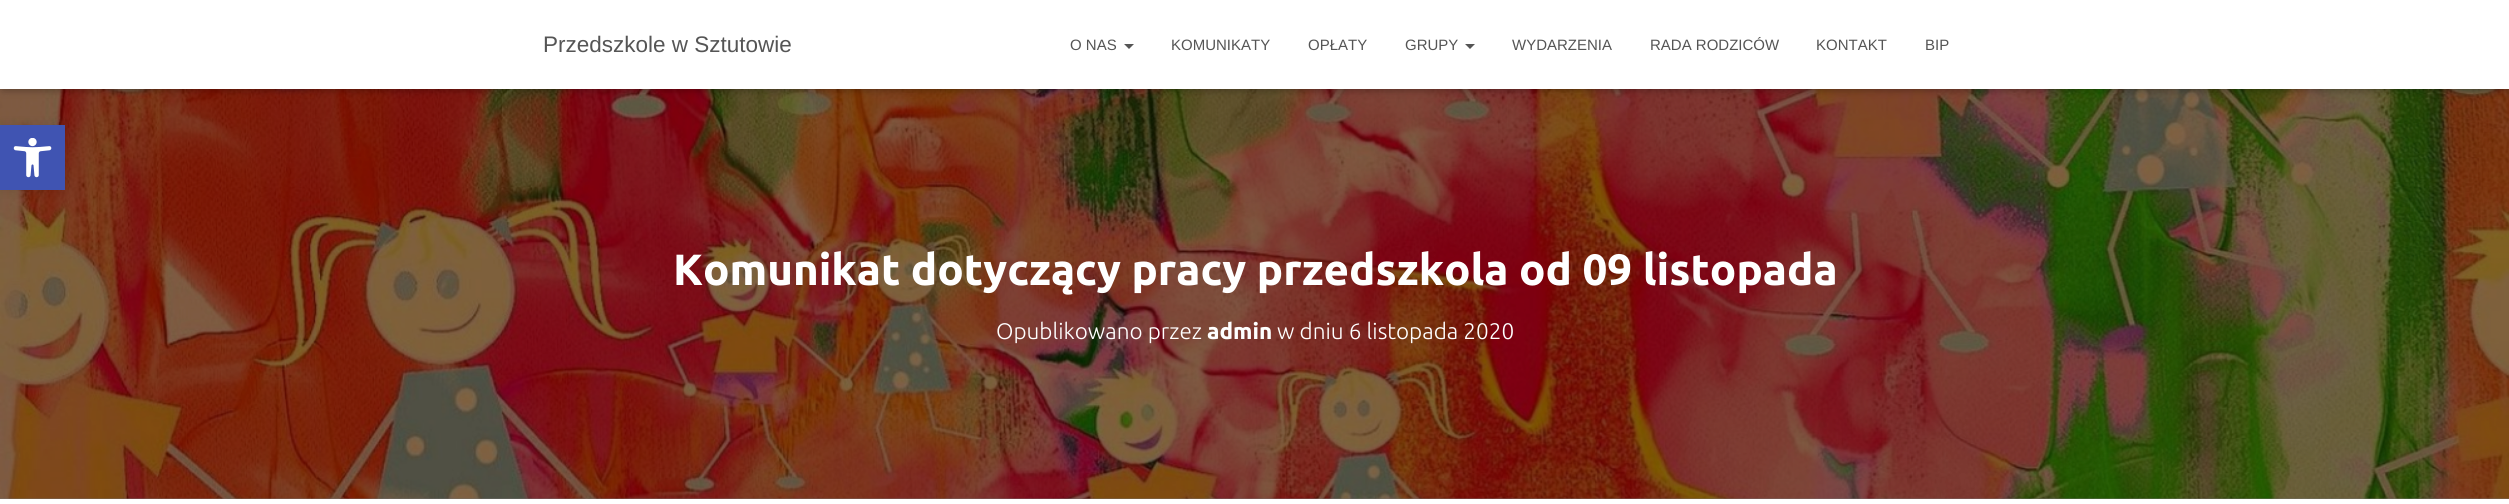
#include <cairo.h>
#include <math.h>
#include <stddef.h>

typedef struct { const char *family; double size; int italic, bold; unsigned color; } style_t;
static cairo_t *ctx;

static void ink(unsigned color) {
    cairo_set_source_rgb(ctx, (color >> 16) / 255.0, (color >> 8 & 255) / 255.0, (color & 255) / 255.0);
}

static void write(double x, double y, const char *s, const style_t *st) {
    cairo_select_font_face(ctx, st->family, st->italic ? CAIRO_FONT_SLANT_ITALIC : CAIRO_FONT_SLANT_NORMAL,
        st->bold ? CAIRO_FONT_WEIGHT_BOLD : CAIRO_FONT_WEIGHT_NORMAL);
    cairo_set_font_size(ctx, st->size);
    ink(st->color);
    cairo_move_to(ctx, x, y);
    cairo_show_text(ctx, s);
}

static void block(double x, double y, double w, double h, unsigned color) {
    ink(color);
    cairo_rectangle(ctx, x, y, w, h);
    cairo_fill(ctx);
}

static void round_path(double x, double y, double w, double h, double r) {
    cairo_new_sub_path(ctx);
    cairo_arc(ctx, x + w - r, y + h - r, r, 0, M_PI / 2);
    cairo_arc(ctx, x + r, y + h - r, r, M_PI / 2, M_PI);
    cairo_arc(ctx, x + r, y + r, r, M_PI, 1.5 * M_PI);
    cairo_arc(ctx, x + w - r, y + r, r, 1.5 * M_PI, 2 * M_PI);
    cairo_close_path(ctx);
}

static void blur_box(double x, double y, double w, double h, double r, double blur, double alpha) {
    cairo_push_group_with_content(ctx, CAIRO_CONTENT_ALPHA);
    cairo_set_operator(ctx, CAIRO_OPERATOR_SOURCE);
    for (int i = 15; i >= -15 && fmin(w, h) + blur * i / 3 > 0; i -= 2) {
        double e = blur * i / 6;
        cairo_set_source_rgba(ctx, 0, 0, 0, alpha * erfc((i - 1) / 8.5) / 2);
        round_path(x - e, y - e, w + 2 * e, h + 2 * e, fmax(0, fmin(r + e + blur * .6, fmin(w, h) / 2 + e)));
        cairo_fill(ctx);
    }
    cairo_pattern_t *soft = cairo_pop_group(ctx);
    cairo_mask(ctx, soft);
    cairo_pattern_destroy(soft);
}

static void paste(const char *path, double x, double y, double w, double h) {
    cairo_surface_t *image = cairo_image_surface_create_from_png(path);
    cairo_save(ctx);
    cairo_set_source_surface(ctx, image, x, y);
    cairo_rectangle(ctx, x, y, w, h);
    cairo_fill(ctx);
    cairo_restore(ctx);
    cairo_surface_destroy(image);
}

static const style_t s1 = {"Liberation Sans", 22.5, 0, 0, 0x555555};
static const style_t s2 = {"Liberation Sans", 15, 0, 0, 0x555555};
static const style_t s3 = {"Ubuntu", 43.75, 0, 1, 0xffffff};
static const style_t s4 = {"Ubuntu Light", 22.5, 0, 0, 0xffffff};
static const style_t s5 = {"Ubuntu", 22.5, 0, 1, 0xffffff};

int main(void) {
    cairo_surface_t *surface = cairo_image_surface_create(CAIRO_FORMAT_RGB24, 2509, 504);
    ctx = cairo_create(surface);
    cairo_font_options_t *options = cairo_font_options_create();
    cairo_font_options_set_hint_metrics(options, CAIRO_HINT_METRICS_OFF);
    cairo_font_options_set_hint_style(options, CAIRO_HINT_STYLE_NONE);
    cairo_set_font_options(ctx, options);
    cairo_set_miter_limit(ctx, 4);
    ink(0x737373);
    cairo_paint(ctx);
    paste("pic2.png", 0, 89, 2509, 410);
    ink(0x000000);
    blur_box(0, 125, 65, 65, 0, 6, 0.1);
    block(0, 125, 65, 65, 0x4054b2);
    paste("pic1.png", 13, 138, 39, 40);
    ink(0x000000);
    blur_box(3, 8, 2505, 83, 0, 3, 0.1);
    blur_box(0, 1, 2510, 89, 0, 6, 0.12);
    blur_box(8, 9, 2495, 74, 0, 6, 0.42);
    block(0, 0, 2509, 89, 0xffffff);
    write(543, 52, "Przedszkole w Sztutowie", &s1);
    write(1070, 50, "O NAS", &s2);
    cairo_new_path(ctx);
    cairo_move_to(ctx, 1124, 44);
    cairo_line_to(ctx, 1134, 44);
    cairo_line_to(ctx, 1129, 49);
    cairo_close_path(ctx);
    cairo_fill(ctx);
    write(1171, 50, "KOMUNIKATY", &s2);
    write(1308, 50, "OPŁATY", &s2);
    write(1405, 50, "GRUPY", &s2);
    cairo_new_path(ctx);
    cairo_move_to(ctx, 1465, 44);
    cairo_line_to(ctx, 1475, 44);
    cairo_line_to(ctx, 1470, 49);
    cairo_close_path(ctx);
    cairo_fill(ctx);
    write(1512, 50, "WYDARZENIA", &s2);
    write(1650, 50, "RADA RODZICÓW", &s2);
    write(1816, 50, "KONTAKT", &s2);
    write(1925, 50, "BIP", &s2);
    write(673, 285, "Komunikat dotyczący pracy przedszkola od 09 listopada", &s3);
    write(996, 339, "Opublikowano przez", &s4);
    write(1207, 339, "admin", &s5);
    write(1277, 339, "w dniu 6 listopada 2020", &s4);
    block(0, 499, 2509, 5, 0xffffff);
    cairo_surface_write_to_png(surface, "screenshot.png");
    cairo_font_options_destroy(options);
    cairo_destroy(ctx);
    cairo_surface_destroy(surface);
    return 0;
}
